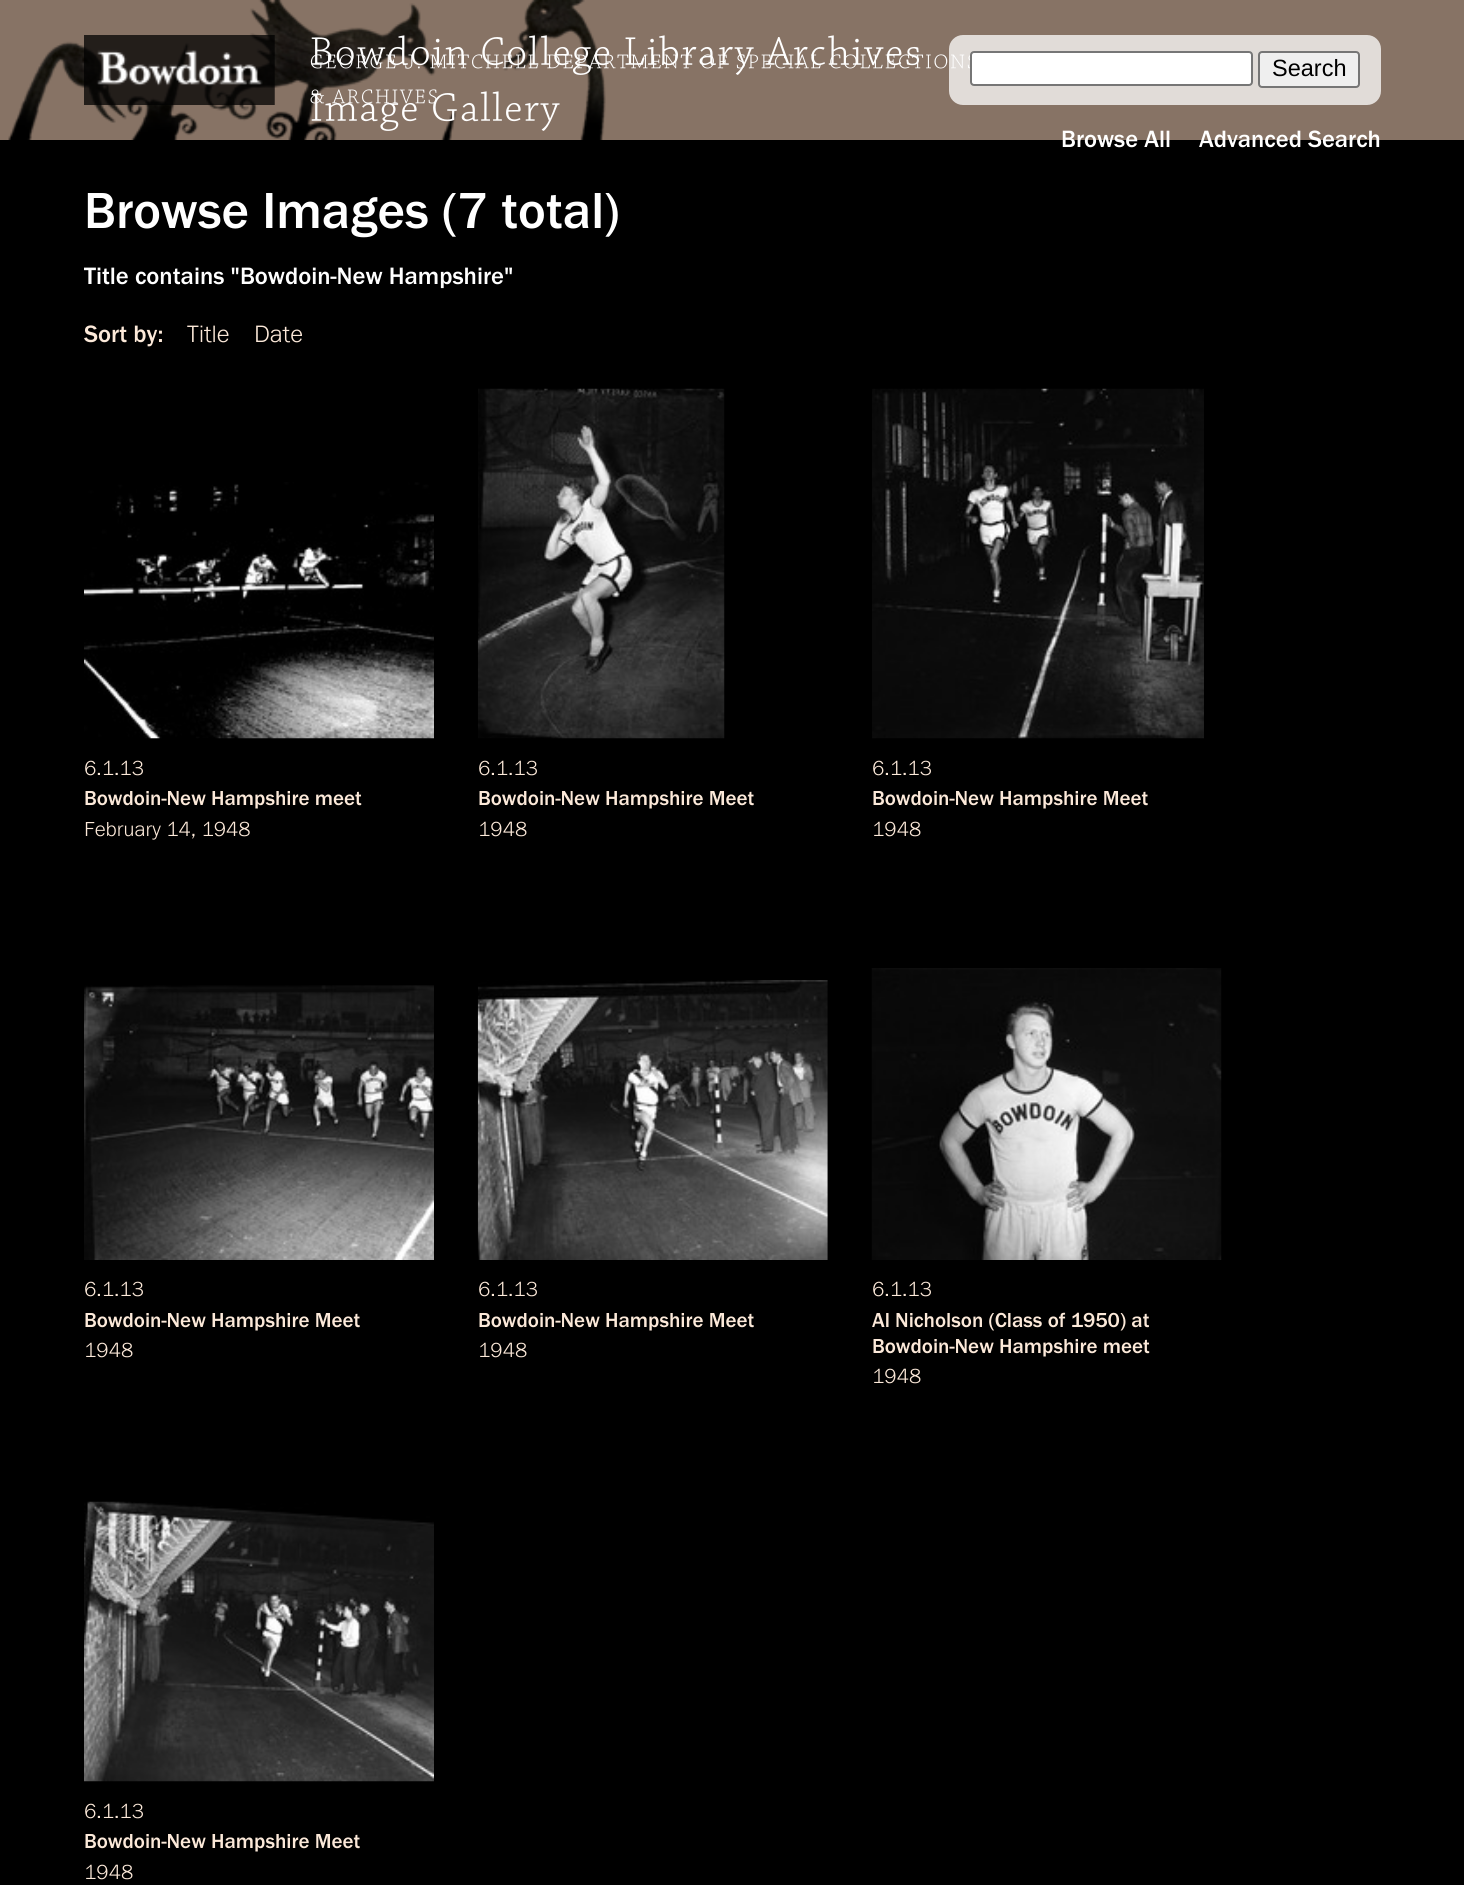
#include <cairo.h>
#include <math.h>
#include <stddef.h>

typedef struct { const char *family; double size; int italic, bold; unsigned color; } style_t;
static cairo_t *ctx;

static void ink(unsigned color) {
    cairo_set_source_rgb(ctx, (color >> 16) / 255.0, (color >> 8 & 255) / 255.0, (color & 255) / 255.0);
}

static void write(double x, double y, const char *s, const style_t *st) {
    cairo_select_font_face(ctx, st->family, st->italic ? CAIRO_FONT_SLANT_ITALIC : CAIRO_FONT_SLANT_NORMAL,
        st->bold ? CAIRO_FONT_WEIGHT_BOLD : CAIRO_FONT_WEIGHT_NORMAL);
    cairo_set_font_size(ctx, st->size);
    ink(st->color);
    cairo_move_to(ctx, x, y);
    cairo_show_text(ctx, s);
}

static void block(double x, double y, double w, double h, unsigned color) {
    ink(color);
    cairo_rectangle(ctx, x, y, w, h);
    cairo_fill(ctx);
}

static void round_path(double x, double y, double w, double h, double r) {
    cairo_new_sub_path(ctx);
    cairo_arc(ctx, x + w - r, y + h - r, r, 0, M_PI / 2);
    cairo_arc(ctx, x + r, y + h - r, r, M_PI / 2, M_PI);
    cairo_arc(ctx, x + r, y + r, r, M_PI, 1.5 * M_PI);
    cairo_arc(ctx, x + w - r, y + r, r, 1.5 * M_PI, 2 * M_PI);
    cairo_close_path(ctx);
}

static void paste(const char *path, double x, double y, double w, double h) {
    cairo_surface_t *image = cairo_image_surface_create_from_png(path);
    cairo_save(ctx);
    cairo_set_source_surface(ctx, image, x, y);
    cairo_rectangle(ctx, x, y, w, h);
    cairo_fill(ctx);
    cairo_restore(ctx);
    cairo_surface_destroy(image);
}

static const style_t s1 = {"Liberation Sans", 23.5, 0, 0, 0x000000};
static const style_t s2 = {"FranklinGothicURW", 24.5, 0, 0, 0xffffff};
static const style_t s3 = {"FranklinGothicURW", 52.5, 0, 0, 0xffffff};
static const style_t s4 = {"FranklinGothicURW", 24.6, 0, 0, 0xffffff};
static const style_t s5 = {"FranklinGothicURW", 24.6, 0, 0, 0xfce9d9};
static const style_t s6 = {"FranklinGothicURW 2", 24.6, 0, 0, 0xfce9d9};
static const style_t s7 = {"FranklinGothicURW 2", 21, 0, 0, 0xfce9d9};
static const style_t s8 = {"FranklinGothicURW", 21, 0, 0, 0xfce9d9};

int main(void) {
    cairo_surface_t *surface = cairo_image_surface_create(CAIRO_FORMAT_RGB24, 1464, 1885);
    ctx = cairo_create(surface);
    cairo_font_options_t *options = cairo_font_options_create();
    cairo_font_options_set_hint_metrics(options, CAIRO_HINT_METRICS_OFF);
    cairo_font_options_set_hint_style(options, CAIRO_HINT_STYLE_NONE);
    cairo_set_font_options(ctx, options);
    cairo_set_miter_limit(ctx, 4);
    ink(0x000000);
    cairo_paint(ctx);
    block(0, 0, 1464, 140, 0x877365);
    paste("pic1.png", 8, 0, 598, 140);
    paste("pic2.png", 84, 35, 191, 70);
    paste("pic3.png", 311, 35, 608, 40);
    paste("pic4.png", 311, 91, 249, 40);
    paste("pic5.png", 310, 54, 661, 15);
    paste("pic6.png", 310, 89, 127, 15);
    cairo_set_source_rgba(ctx, 1, 1, 1, 0.75);
    round_path(949, 35, 432, 70, 14);
    cairo_fill(ctx);
    ink(0xffffff);
    round_path(971, 52, 281, 33, 3);
    cairo_fill_preserve(ctx);
    ink(0x767676);
    cairo_stroke(ctx);
    ink(0xefefef);
    round_path(1259, 52, 100, 35, 3);
    cairo_fill_preserve(ctx);
    ink(0x767676);
    cairo_stroke(ctx);
    write(1272, 76, "Search", &s1);
    write(1061, 147, "Browse All", &s2);
    write(1199, 147, "Advanced Search", &s2);
    write(84, 228, "Browse Images (7 total)", &s3);
    write(84, 284, "Title contains \"Bowdoin-New Hampshire\"", &s4);
    write(84, 342, "Sort by:", &s5);
    write(187, 342, "Title", &s6);
    write(254, 342, "Date", &s6);
    paste("pic7.png", 84, 482, 350, 257);
    write(84, 775, "6.1.13", &s7);
    write(84, 805, "Bowdoin-New Hampshire meet", &s8);
    write(84, 836, "February 14, 1948", &s7);
    paste("pic8.png", 477, 388, 248, 351);
    write(478, 775, "6.1.13", &s7);
    write(478, 805, "Bowdoin-New Hampshire Meet", &s8);
    write(478, 836, "1948", &s7);
    paste("pic9.png", 872, 388, 332, 351);
    write(872, 775, "6.1.13", &s7);
    write(872, 805, "Bowdoin-New Hampshire Meet", &s8);
    write(872, 836, "1948", &s7);
    paste("pic10.png", 84, 985, 350, 275);
    write(84, 1296, "6.1.13", &s7);
    write(84, 1327, "Bowdoin-New Hampshire Meet", &s8);
    write(84, 1357, "1948", &s7);
    paste("pic11.png", 477, 980, 351, 280);
    write(478, 1296, "6.1.13", &s7);
    write(478, 1327, "Bowdoin-New Hampshire Meet", &s8);
    write(478, 1357, "1948", &s7);
    paste("pic12.png", 871, 968, 351, 292);
    write(872, 1296, "6.1.13", &s7);
    write(872, 1327, "Al Nicholson (Class of 1950) at", &s8);
    write(872, 1353, "Bowdoin-New Hampshire meet", &s8);
    write(872, 1383, "1948", &s7);
    paste("pic13.png", 84, 1501, 350, 281);
    write(84, 1818, "6.1.13", &s7);
    write(84, 1848, "Bowdoin-New Hampshire Meet", &s8);
    write(84, 1879, "1948", &s7);
    cairo_surface_write_to_png(surface, "screenshot.png");
    cairo_font_options_destroy(options);
    cairo_destroy(ctx);
    cairo_surface_destroy(surface);
    return 0;
}
